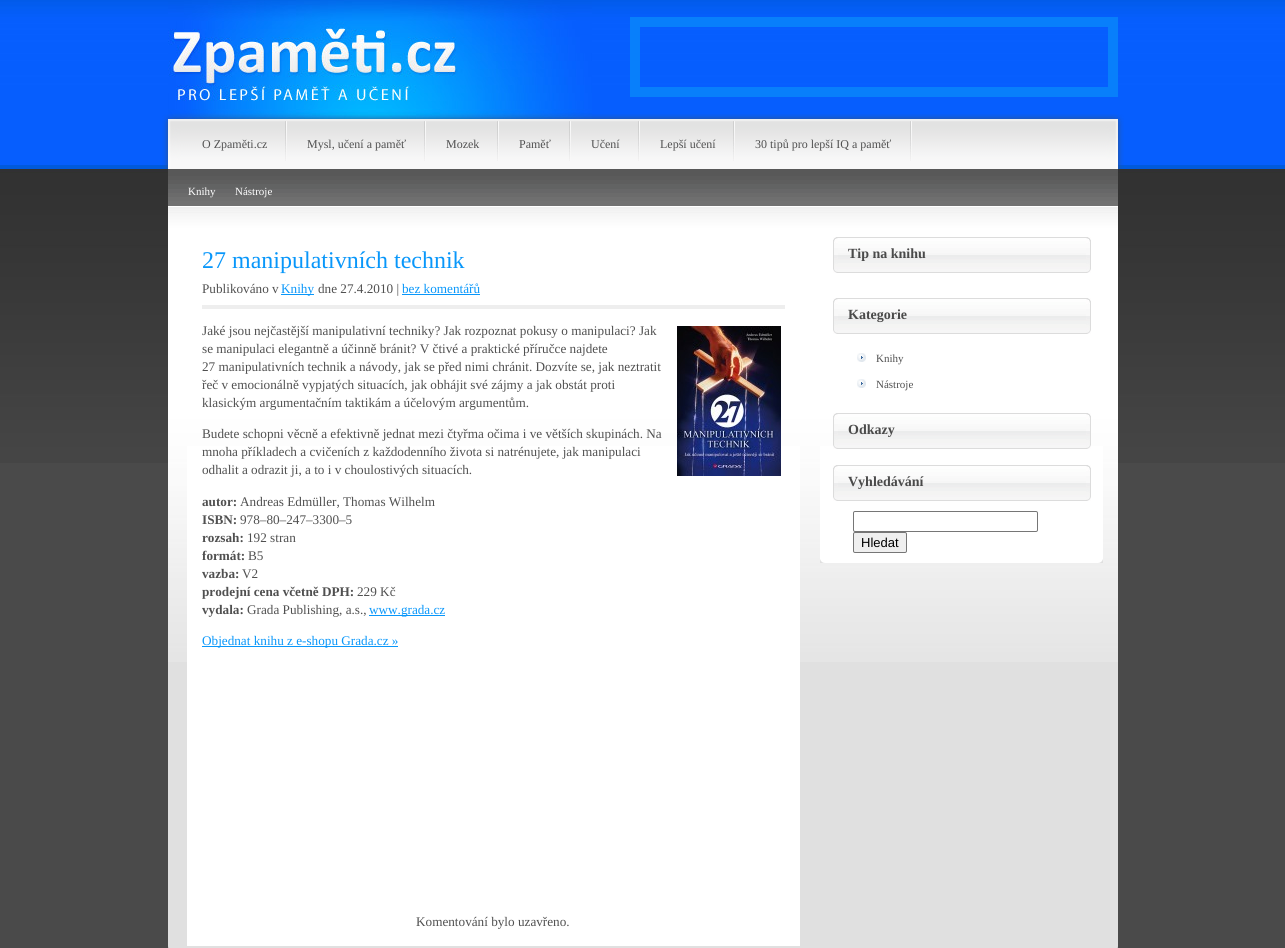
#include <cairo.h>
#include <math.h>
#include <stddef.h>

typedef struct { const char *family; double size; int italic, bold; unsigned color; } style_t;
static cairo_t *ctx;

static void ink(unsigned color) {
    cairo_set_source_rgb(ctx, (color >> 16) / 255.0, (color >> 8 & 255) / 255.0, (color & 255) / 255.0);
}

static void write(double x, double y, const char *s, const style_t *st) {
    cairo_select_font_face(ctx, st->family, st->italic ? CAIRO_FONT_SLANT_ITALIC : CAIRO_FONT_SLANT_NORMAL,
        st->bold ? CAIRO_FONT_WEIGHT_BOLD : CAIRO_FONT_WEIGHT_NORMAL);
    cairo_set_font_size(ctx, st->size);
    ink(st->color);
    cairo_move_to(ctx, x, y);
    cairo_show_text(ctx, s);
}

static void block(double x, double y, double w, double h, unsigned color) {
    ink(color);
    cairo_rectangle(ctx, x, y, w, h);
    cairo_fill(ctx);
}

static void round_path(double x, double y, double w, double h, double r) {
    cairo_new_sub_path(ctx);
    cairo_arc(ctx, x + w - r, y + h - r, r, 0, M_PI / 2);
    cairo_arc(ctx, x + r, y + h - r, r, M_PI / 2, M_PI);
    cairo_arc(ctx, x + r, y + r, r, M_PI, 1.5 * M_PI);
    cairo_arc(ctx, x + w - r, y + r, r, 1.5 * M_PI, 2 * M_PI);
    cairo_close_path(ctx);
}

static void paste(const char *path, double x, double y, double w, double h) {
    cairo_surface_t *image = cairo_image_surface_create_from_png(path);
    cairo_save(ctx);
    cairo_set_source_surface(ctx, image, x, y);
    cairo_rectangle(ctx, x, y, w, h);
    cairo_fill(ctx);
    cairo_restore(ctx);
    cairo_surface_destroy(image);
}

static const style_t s1 = {"Liberation Serif", 12, 0, 0, 0x505050};
static const style_t s2 = {"Liberation Serif", 11, 0, 0, 0xffffff};
static const style_t s3 = {"Liberation Serif", 24, 0, 0, 0x0997fa};
static const style_t s4 = {"Liberation Serif", 13.2, 0, 0, 0x505050};
static const style_t s5 = {"Liberation Serif", 13.2, 0, 0, 0x0997fa};
static const style_t s6 = {"Liberation Serif", 13.2, 0, 1, 0x505050};
static const style_t s7 = {"Liberation Serif", 14, 0, 1, 0x4a4a4a};
static const style_t s8 = {"Liberation Serif", 11, 0, 0, 0x505050};
static const style_t s9 = {"Liberation Sans", 13, 0, 0, 0x000000};

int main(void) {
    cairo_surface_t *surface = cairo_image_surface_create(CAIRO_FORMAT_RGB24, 1285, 948);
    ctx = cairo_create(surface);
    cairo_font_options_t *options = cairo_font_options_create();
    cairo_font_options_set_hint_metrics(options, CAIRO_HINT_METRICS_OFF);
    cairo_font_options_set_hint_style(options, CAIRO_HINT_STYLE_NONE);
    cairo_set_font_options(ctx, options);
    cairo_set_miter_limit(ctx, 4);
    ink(0x4a4a4a);
    cairo_paint(ctx);
    paste("pic1.png", 0, 0, 1285, 463);
    paste("pic3.png", 162, 114, 20, 55);
    paste("pic4.png", 182, 114, 922, 55);
    paste("pic2.png", 168, 0, 424, 119);
    cairo_rectangle(ctx, 635, 22, 478, 70);
    ink(0x087ffb);
    cairo_set_line_width(ctx, 10);
    cairo_stroke(ctx);
    paste("pic5.png", 285, 121, 2, 40);
    write(202, 148, "O Zpaměti.cz", &s1);
    paste("pic5.png", 424, 121, 2, 40);
    write(307, 148, "Mysl, učení a paměť", &s1);
    paste("pic5.png", 497, 121, 2, 40);
    write(446, 148, "Mozek", &s1);
    paste("pic5.png", 569, 121, 2, 40);
    write(519, 148, "Paměť", &s1);
    paste("pic5.png", 638, 121, 2, 40);
    write(591, 148, "Učení", &s1);
    paste("pic5.png", 733, 121, 2, 40);
    write(660, 148, "Lepší učení", &s1);
    paste("pic5.png", 910, 121, 2, 40);
    write(755, 148, "30 tipů pro lepší IQ a paměť", &s1);
    paste("pic6.png", 1104, 114, 20, 55);
    paste("pic7.png", 168, 169, 950, 37);
    write(188, 195, "Knihy", &s2);
    write(235, 195, "Nástroje", &s2);
    block(168, 662, 950, 284, 0xe0e0e0);
    paste("pic8.png", 168, 206, 950, 456);
    block(187, 446, 613, 500, 0xffffff);
    write(202, 268, "27 manipulativních technik", &s3);
    block(202, 305, 583, 4, 0xeeeeee);
    write(202, 293, "Publikováno v", &s4);
    block(281, 294, 33, 1, 0x0997fa);
    write(281, 293, "Knihy", &s5);
    write(318, 293, "dne 27.4.2010 |", &s4);
    write(402, 293, "bez komentářů", &s5);
    block(402, 294, 78, 1, 0x0997fa);
    write(202, 335, "Jaké jsou nejčastější manipulativní techniky? Jak rozpoznat pokusy o manipulaci? Jak", &s4);
    paste("pic9.png", 677, 326, 104, 150);
    write(202, 353, "se manipulaci elegantně a účinně bránit? V čtivé a praktické příručce najdete", &s4);
    write(202, 371, "27 manipulativních technik a návody, jak se před nimi chránit. Dozvíte se, jak neztratit", &s4);
    write(202, 389, "řeč v emocionálně vypjatých situacích, jak obhájit své zájmy a jak obstát proti", &s4);
    write(202, 407, "klasickým argumentačním taktikám a účelovým argumentům.", &s4);
    write(202, 438, "Budete schopni věcně a efektivně jednat mezi čtyřma očima i ve větších skupinách. Na", &s4);
    write(202, 456, "mnoha příkladech a cvičeních z každodenního života si natrénujete, jak manipulaci", &s4);
    write(202, 474, "odhalit a odrazit ji, a to i v choulostivých situacích.", &s4);
    write(202, 506, "autor:", &s6);
    write(240, 506, "Andreas Edmüller, Thomas Wilhelm", &s4);
    write(202, 524, "ISBN:", &s6);
    write(240, 524, "978–80–247–3300–5", &s4);
    write(202, 542, "rozsah:", &s6);
    write(247, 542, "192 stran", &s4);
    write(202, 560, "formát:", &s6);
    write(248, 560, "B5", &s4);
    write(202, 578, "vazba:", &s6);
    write(242, 578, "V2", &s4);
    write(202, 596, "prodejní cena včetně DPH:", &s6);
    write(357, 596, "229 Kč", &s4);
    write(202, 614, "vydala:", &s6);
    write(247, 614, "Grada Publishing, a.s.,", &s4);
    block(369, 615, 76, 1, 0x0997fa);
    write(369, 614, "www.grada.cz", &s5);
    block(202, 646, 196, 1, 0x0997fa);
    write(202, 645, "Objednat knihu z e-shopu Grada.cz »", &s5);
    write(416, 926, "Komentování bylo uzavřeno.", &s4);
    block(820, 446, 283, 113, 0xffffff);
    paste("pic10.png", 820, 559, 283, 4);
    paste("pic11.png", 833, 237, 258, 36);
    write(848, 258, "Tip na knihu", &s7);
    paste("pic11.png", 833, 298, 258, 36);
    write(848, 319, "Kategorie", &s7);
    paste("pic12.png", 857, 353, 9, 9);
    write(876, 362, "Knihy", &s8);
    paste("pic12.png", 857, 379, 9, 9);
    write(876, 388, "Nástroje", &s8);
    paste("pic11.png", 833, 413, 258, 36);
    write(848, 434, "Odkazy", &s7);
    paste("pic11.png", 833, 465, 258, 36);
    write(848, 486, "Vyhledávání", &s7);
    round_path(853.5, 511.5, 184, 20, 1.5);
    ink(0x767676);
    cairo_set_line_width(ctx, 1);
    cairo_stroke(ctx);
    ink(0xefefef);
    round_path(853.5, 532.5, 53, 20, 1.5);
    cairo_fill_preserve(ctx);
    ink(0x767676);
    cairo_stroke(ctx);
    write(861, 547, "Hledat", &s9);
    paste("pic13.png", 168, 946, 950, 2);
    cairo_surface_write_to_png(surface, "screenshot.png");
    cairo_font_options_destroy(options);
    cairo_destroy(ctx);
    cairo_surface_destroy(surface);
    return 0;
}
